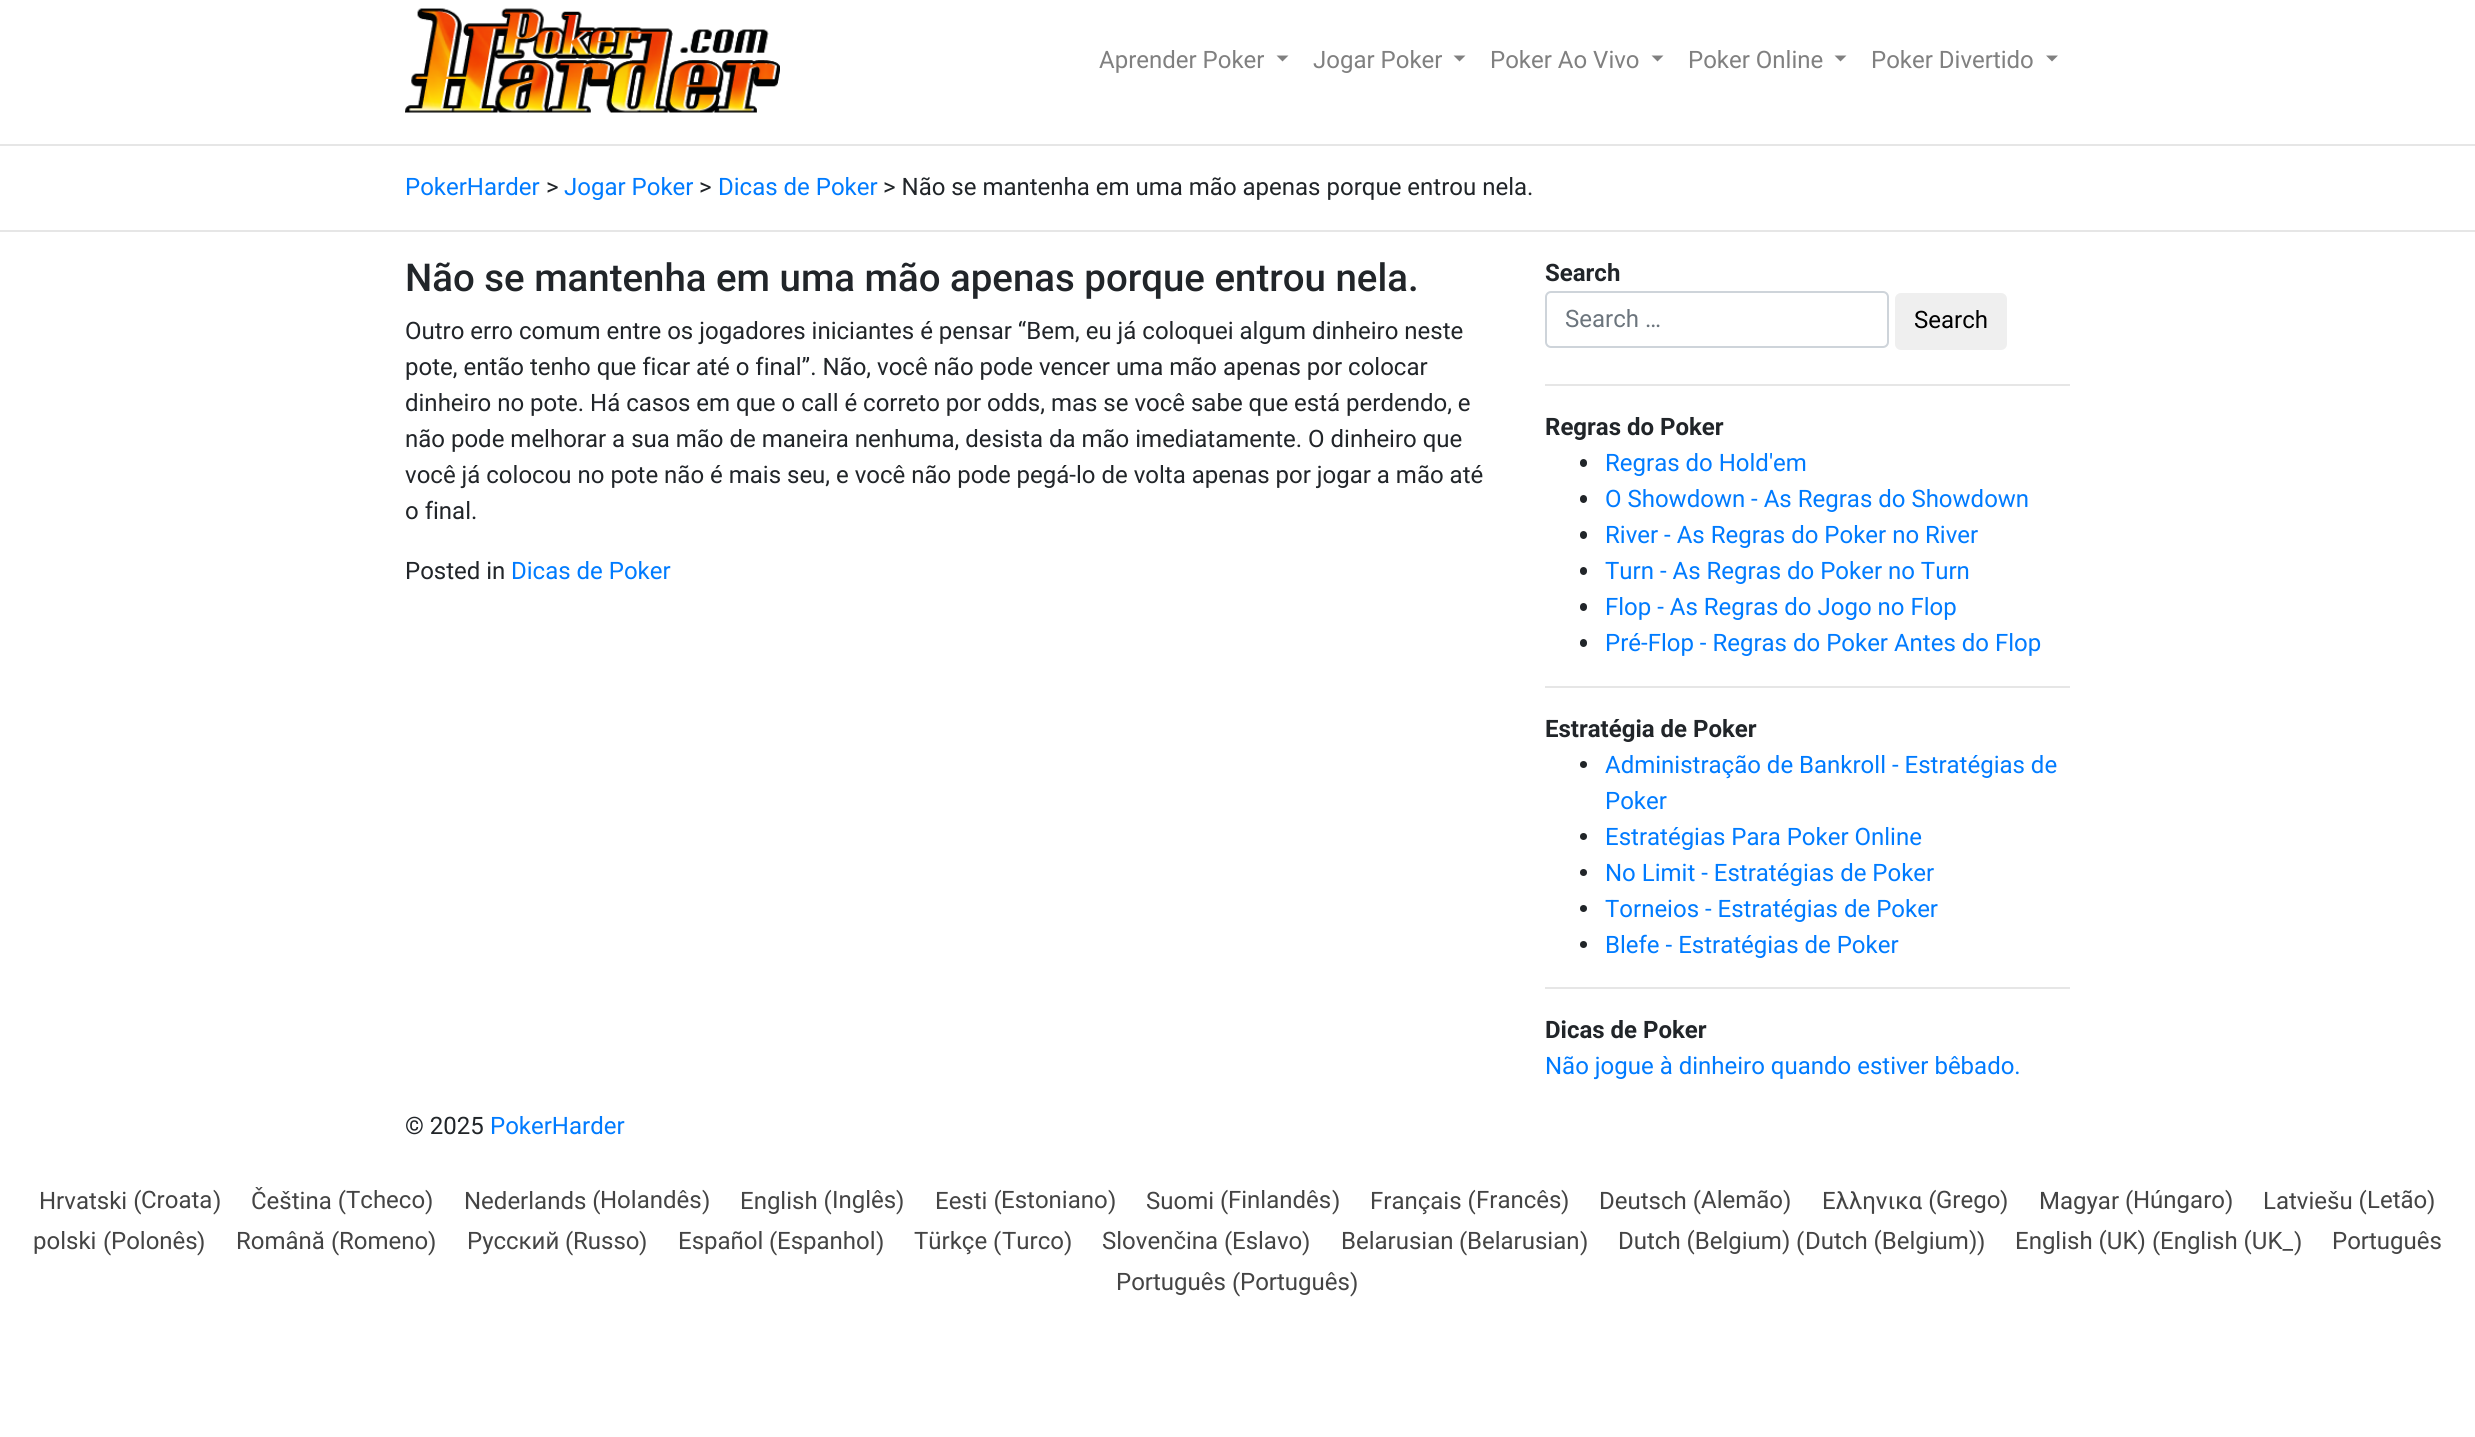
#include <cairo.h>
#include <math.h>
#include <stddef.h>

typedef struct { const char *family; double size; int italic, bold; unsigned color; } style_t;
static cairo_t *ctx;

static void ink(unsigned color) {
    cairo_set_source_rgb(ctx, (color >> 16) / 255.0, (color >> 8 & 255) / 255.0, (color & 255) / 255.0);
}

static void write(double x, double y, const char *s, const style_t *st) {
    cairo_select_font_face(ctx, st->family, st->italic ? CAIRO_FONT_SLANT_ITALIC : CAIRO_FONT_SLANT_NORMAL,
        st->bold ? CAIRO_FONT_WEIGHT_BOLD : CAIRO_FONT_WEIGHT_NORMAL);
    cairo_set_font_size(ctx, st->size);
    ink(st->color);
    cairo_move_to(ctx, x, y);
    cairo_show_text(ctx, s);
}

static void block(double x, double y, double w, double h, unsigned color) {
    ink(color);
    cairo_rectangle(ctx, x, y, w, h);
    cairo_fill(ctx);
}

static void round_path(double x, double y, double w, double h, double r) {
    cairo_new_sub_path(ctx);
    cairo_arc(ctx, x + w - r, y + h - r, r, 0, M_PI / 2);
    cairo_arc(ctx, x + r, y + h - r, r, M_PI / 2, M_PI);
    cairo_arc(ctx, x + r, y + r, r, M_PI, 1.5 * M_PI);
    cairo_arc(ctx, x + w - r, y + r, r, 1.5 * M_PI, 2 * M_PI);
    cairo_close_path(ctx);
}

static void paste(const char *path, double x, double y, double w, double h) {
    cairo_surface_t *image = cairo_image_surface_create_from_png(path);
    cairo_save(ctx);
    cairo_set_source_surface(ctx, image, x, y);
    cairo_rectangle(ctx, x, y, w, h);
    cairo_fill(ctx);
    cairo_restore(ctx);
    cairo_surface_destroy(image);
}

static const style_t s1 = {"Roboto", 24, 0, 0, 0x808080};
static const style_t s2 = {"Roboto", 24, 0, 0, 0x007bff};
static const style_t s3 = {"Roboto", 24, 0, 0, 0x212529};
static const style_t s4 = {"Roboto Medium", 38.4, 0, 0, 0x212529};
static const style_t s5 = {"Roboto", 24, 0, 1, 0x212529};
static const style_t s6 = {"Roboto", 24, 0, 0, 0x6c757d};
static const style_t s7 = {"Roboto", 24, 0, 0, 0x000000};
static const style_t s8 = {"Roboto", 24, 0, 0, 0x444444};

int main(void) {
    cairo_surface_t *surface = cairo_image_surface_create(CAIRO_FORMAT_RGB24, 2475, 1437);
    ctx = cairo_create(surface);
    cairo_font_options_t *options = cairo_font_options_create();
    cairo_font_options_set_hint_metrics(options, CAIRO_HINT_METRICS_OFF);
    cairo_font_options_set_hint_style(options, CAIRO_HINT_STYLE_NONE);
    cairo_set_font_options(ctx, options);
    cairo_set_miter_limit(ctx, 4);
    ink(0xffffff);
    cairo_paint(ctx);
    paste("pic1.png", 405, 8, 375, 105);
    write(1099, 68, "Aprender Poker", &s1);
    cairo_new_path(ctx);
    cairo_move_to(ctx, 1276.5, 55.5);
    cairo_line_to(ctx, 1288.5, 55.5);
    cairo_line_to(ctx, 1282.5, 61.5);
    cairo_close_path(ctx);
    cairo_fill(ctx);
    write(1313, 68, "Jogar Poker", &s1);
    cairo_new_path(ctx);
    cairo_move_to(ctx, 1453.5, 55.5);
    cairo_line_to(ctx, 1465.5, 55.5);
    cairo_line_to(ctx, 1459.5, 61.5);
    cairo_close_path(ctx);
    cairo_fill(ctx);
    write(1490, 68, "Poker Ao Vivo", &s1);
    cairo_new_path(ctx);
    cairo_move_to(ctx, 1651.5, 55.5);
    cairo_line_to(ctx, 1663.5, 55.5);
    cairo_line_to(ctx, 1657.5, 61.5);
    cairo_close_path(ctx);
    cairo_fill(ctx);
    write(1688, 68, "Poker Online", &s1);
    cairo_new_path(ctx);
    cairo_move_to(ctx, 1834.5, 55.5);
    cairo_line_to(ctx, 1846.5, 55.5);
    cairo_line_to(ctx, 1840.5, 61.5);
    cairo_close_path(ctx);
    cairo_fill(ctx);
    write(1871, 68, "Poker Divertido", &s1);
    cairo_new_path(ctx);
    cairo_move_to(ctx, 2046, 55.5);
    cairo_line_to(ctx, 2058, 55.5);
    cairo_line_to(ctx, 2052, 61.5);
    cairo_close_path(ctx);
    cairo_fill(ctx);
    block(0, 144, 2475, 2, 0xe6e6e6);
    write(405, 195, "PokerHarder", &s2);
    write(546, 195, ">", &s3);
    write(564, 195, "Jogar Poker", &s2);
    write(699, 195, ">", &s3);
    write(718, 195, "Dicas de Poker", &s2);
    write(883, 195, "> Não se mantenha em uma mão apenas porque entrou nela.", &s3);
    block(0, 230, 2475, 2, 0xe6e6e6);
    write(405, 291, "Não se mantenha em uma mão apenas porque entrou nela.", &s4);
    write(405, 339, "Outro erro comum entre os jogadores iniciantes é pensar “Bem, eu já coloquei algum dinheiro neste", &s3);
    write(405, 375, "pote, então tenho que ficar até o final”. Não, você não pode vencer uma mão apenas por colocar", &s3);
    write(405, 411, "dinheiro no pote. Há casos em que o call é correto por odds, mas se você sabe que está perdendo, e", &s3);
    write(405, 447, "não pode melhorar a sua mão de maneira nenhuma, desista da mão imediatamente. O dinheiro que", &s3);
    write(405, 483, "você já colocou no pote não é mais seu, e você não pode pegá-lo de volta apenas por jogar a mão até", &s3);
    write(405, 519, "o final.", &s3);
    write(405, 579, "Posted in", &s3);
    write(511, 579, "Dicas de Poker", &s2);
    write(1545, 281, "Search", &s5);
    round_path(1546, 292, 342, 55, 5);
    ink(0xced4da);
    cairo_stroke(ctx);
    write(1565, 327, "Search …", &s6);
    ink(0xefefef);
    round_path(1895, 293, 112, 57, 6);
    cairo_fill(ctx);
    write(1914, 328, "Search", &s7);
    block(1545, 384, 525, 2, 0xe6e6e6);
    write(1545, 435, "Regras do Poker", &s5);
    round_path(1580, 459, 7, 8, 3.5);
    cairo_fill(ctx);
    write(1605, 471, "Regras do Hold'em", &s2);
    ink(0x212529);
    round_path(1580, 495, 7, 8, 3.5);
    cairo_fill(ctx);
    write(1605, 507, "O Showdown - As Regras do Showdown", &s2);
    ink(0x212529);
    round_path(1580, 531, 7, 8, 3.5);
    cairo_fill(ctx);
    write(1605, 543, "River - As Regras do Poker no River", &s2);
    ink(0x212529);
    round_path(1580, 567, 7, 8, 3.5);
    cairo_fill(ctx);
    write(1605, 579, "Turn - As Regras do Poker no Turn", &s2);
    ink(0x212529);
    round_path(1580, 603, 7, 8, 3.5);
    cairo_fill(ctx);
    write(1605, 615, "Flop - As Regras do Jogo no Flop", &s2);
    ink(0x212529);
    round_path(1580, 639, 7, 8, 3.5);
    cairo_fill(ctx);
    write(1605, 651, "Pré-Flop - Regras do Poker Antes do Flop", &s2);
    block(1545, 686, 525, 2, 0xe6e6e6);
    write(1545, 737, "Estratégia de Poker", &s5);
    cairo_new_path(ctx);
    cairo_arc(ctx, 1583.5, 764.5, 3.5, 0, 2 * M_PI);
    cairo_fill(ctx);
    write(1605, 773, "Administração de Bankroll - Estratégias de", &s2);
    write(1605, 809, "Poker", &s2);
    ink(0x212529);
    cairo_new_path(ctx);
    cairo_arc(ctx, 1583.5, 836.5, 3.5, 0, 2 * M_PI);
    cairo_fill(ctx);
    write(1605, 845, "Estratégias Para Poker Online", &s2);
    ink(0x212529);
    cairo_new_path(ctx);
    cairo_arc(ctx, 1583.5, 872.5, 3.5, 0, 2 * M_PI);
    cairo_fill(ctx);
    write(1605, 881, "No Limit - Estratégias de Poker", &s2);
    ink(0x212529);
    cairo_new_path(ctx);
    cairo_arc(ctx, 1583.5, 908.5, 3.5, 0, 2 * M_PI);
    cairo_fill(ctx);
    write(1605, 917, "Torneios - Estratégias de Poker", &s2);
    ink(0x212529);
    cairo_new_path(ctx);
    cairo_arc(ctx, 1583.5, 944.5, 3.5, 0, 2 * M_PI);
    cairo_fill(ctx);
    write(1605, 953, "Blefe - Estratégias de Poker", &s2);
    block(1545, 987, 525, 2, 0xe6e6e6);
    write(1545, 1038, "Dicas de Poker", &s5);
    write(1545, 1074, "Não jogue à dinheiro quando estiver bêbado.", &s2);
    write(405, 1134, "© 2025", &s3);
    write(490, 1134, "PokerHarder", &s2);
    write(39, 1209, "Hrvatski (", &s8);
    write(141, 1208, "Croata", &s8);
    write(213, 1209, ")", &s8);
    write(251, 1209, "Čeština (", &s8);
    write(346, 1208, "Tcheco", &s8);
    write(425, 1209, ")", &s8);
    write(464, 1209, "Nederlands (", &s8);
    write(600, 1208, "Holandês", &s8);
    write(702, 1209, ")", &s8);
    write(740, 1209, "English (", &s8);
    write(832, 1208, "Inglês", &s8);
    write(896, 1209, ")", &s8);
    write(935, 1209, "Eesti (", &s8);
    write(1001, 1208, "Estoniano", &s8);
    write(1108, 1209, ")", &s8);
    write(1146, 1209, "Suomi (", &s8);
    write(1228, 1208, "Finlandês", &s8);
    write(1332, 1209, ")", &s8);
    write(1370, 1209, "Français (", &s8);
    write(1476, 1208, "Francês", &s8);
    write(1561, 1209, ")", &s8);
    write(1599, 1209, "Deutsch (", &s8);
    write(1701, 1208, "Alemão", &s8);
    write(1783, 1209, ")", &s8);
    write(1822, 1209, "Ελληνικα (", &s8);
    write(1936, 1208, "Grego", &s8);
    write(2000, 1209, ")", &s8);
    write(2039, 1209, "Magyar (", &s8);
    write(2133, 1208, "Húngaro", &s8);
    write(2225, 1209, ")", &s8);
    write(2263, 1209, "Latviešu (", &s8);
    write(2367, 1208, "Letão", &s8);
    write(2427, 1209, ")", &s8);
    write(33, 1249, "polski", &s8);
    write(103, 1250, "(", &s8);
    write(111, 1249, "Polonês", &s8);
    write(197, 1250, ")", &s8);
    write(236, 1249, "Română", &s8);
    write(331, 1250, "(", &s8);
    write(339, 1249, "Romeno", &s8);
    write(428, 1250, ")", &s8);
    write(467, 1249, "Русский", &s8);
    write(565, 1250, "(", &s8);
    write(573, 1249, "Russo", &s8);
    write(639, 1250, ")", &s8);
    write(678, 1249, "Español", &s8);
    write(769, 1250, "(", &s8);
    write(777, 1249, "Espanhol", &s8);
    write(876, 1250, ")", &s8);
    write(914, 1249, "Türkçe", &s8);
    write(993, 1250, "(", &s8);
    write(1002, 1249, "Turco", &s8);
    write(1064, 1250, ")", &s8);
    write(1102, 1249, "Slovenčina", &s8);
    write(1224, 1250, "(", &s8);
    write(1232, 1249, "Eslavo", &s8);
    write(1302, 1250, ")", &s8);
    write(1341, 1249, "Belarusian", &s8);
    write(1459, 1250, "(", &s8);
    write(1467, 1249, "Belarusian", &s8);
    write(1580, 1250, ")", &s8);
    write(1618, 1249, "Dutch (Belgium)", &s8);
    write(1796, 1250, "(", &s8);
    write(1805, 1249, "Dutch (Belgium)", &s8);
    write(1977, 1250, ")", &s8);
    write(2015, 1249, "English (UK)", &s8);
    write(2152, 1250, "(", &s8);
    write(2160, 1249, "English (UK_", &s8);
    write(2294, 1250, ")", &s8);
    write(2332, 1249, "Português", &s8);
    write(1116, 1290, "Português", &s8);
    write(1232, 1291, "(", &s8);
    write(1240, 1290, "Português", &s8);
    write(1350, 1291, ")", &s8);
    cairo_surface_write_to_png(surface, "screenshot.png");
    cairo_font_options_destroy(options);
    cairo_destroy(ctx);
    cairo_surface_destroy(surface);
    return 0;
}
